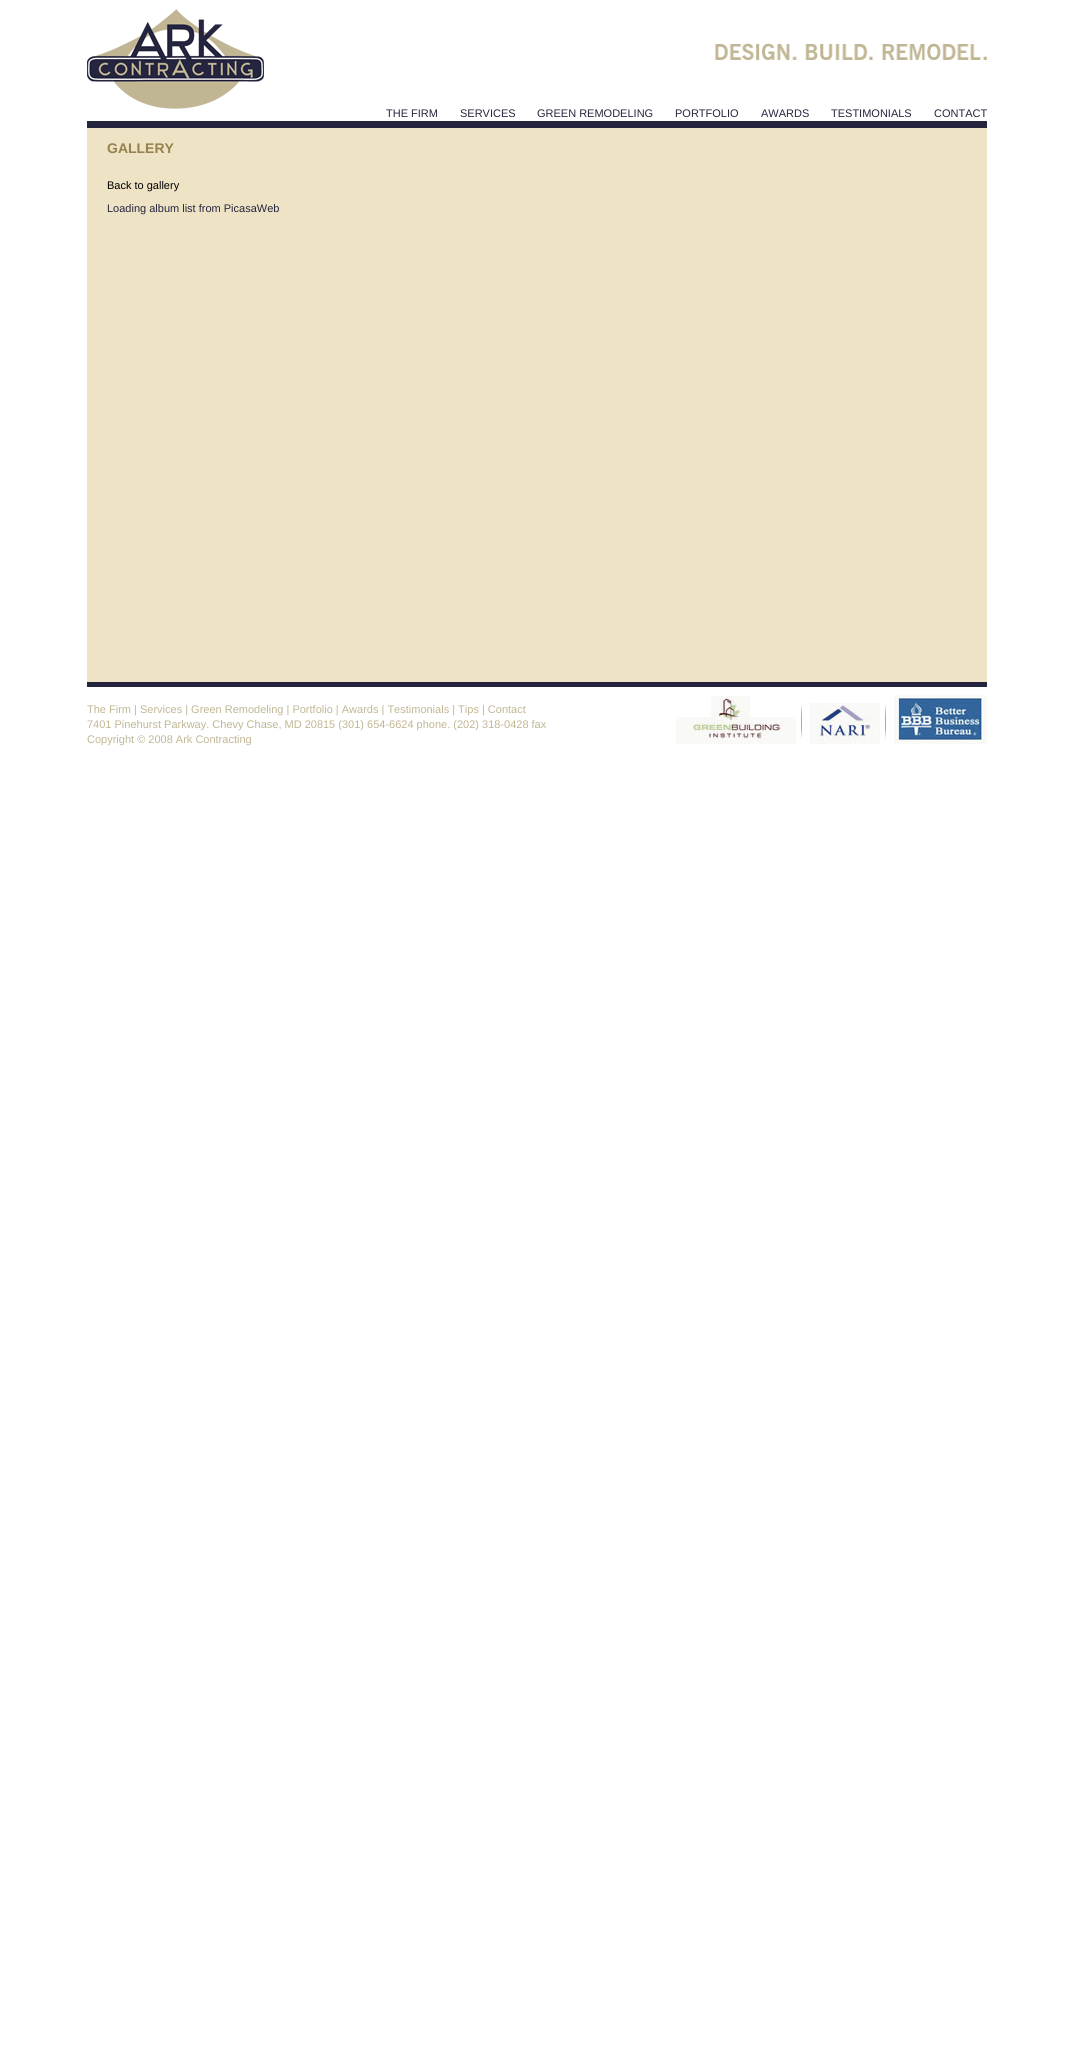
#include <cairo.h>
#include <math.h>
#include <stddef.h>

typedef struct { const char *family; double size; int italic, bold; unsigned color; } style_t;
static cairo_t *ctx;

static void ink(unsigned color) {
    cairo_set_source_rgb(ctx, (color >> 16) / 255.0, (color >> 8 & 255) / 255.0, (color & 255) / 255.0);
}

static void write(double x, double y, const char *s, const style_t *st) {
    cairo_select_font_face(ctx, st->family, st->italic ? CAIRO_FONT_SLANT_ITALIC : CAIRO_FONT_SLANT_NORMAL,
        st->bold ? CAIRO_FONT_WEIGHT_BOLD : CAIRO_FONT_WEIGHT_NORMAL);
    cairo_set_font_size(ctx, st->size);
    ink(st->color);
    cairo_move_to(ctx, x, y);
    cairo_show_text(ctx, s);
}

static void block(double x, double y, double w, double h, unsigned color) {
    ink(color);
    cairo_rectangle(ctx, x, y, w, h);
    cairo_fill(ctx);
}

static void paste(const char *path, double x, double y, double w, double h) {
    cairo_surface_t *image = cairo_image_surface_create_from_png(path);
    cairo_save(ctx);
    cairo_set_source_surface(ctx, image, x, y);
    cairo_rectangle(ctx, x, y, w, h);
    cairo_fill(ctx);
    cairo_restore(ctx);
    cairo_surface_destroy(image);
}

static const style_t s1 = {"Liberation Sans", 11, 0, 0, 0x25253e};
static const style_t s2 = {"Liberation Sans", 14, 0, 1, 0x95824d};
static const style_t s3 = {"Liberation Sans", 11, 0, 0, 0x000000};
static const style_t s4 = {"Liberation Sans", 11, 0, 0, 0xc1b694};

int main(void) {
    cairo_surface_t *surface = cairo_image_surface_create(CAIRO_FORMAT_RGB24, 1074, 2055);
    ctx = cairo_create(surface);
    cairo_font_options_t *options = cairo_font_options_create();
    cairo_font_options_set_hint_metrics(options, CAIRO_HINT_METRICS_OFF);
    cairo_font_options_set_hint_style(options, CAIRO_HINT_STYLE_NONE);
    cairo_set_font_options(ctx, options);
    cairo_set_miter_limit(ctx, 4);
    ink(0xffffff);
    cairo_paint(ctx);
    block(87, 121, 900, 7, 0x25253e);
    paste("pic1.png", 87, 9, 177, 100);
    paste("pic2.png", 715, 43, 272, 17);
    write(386, 117, "THE FIRM", &s1);
    write(460, 117, "SERVICES", &s1);
    write(537, 117, "GREEN REMODELING", &s1);
    write(675, 117, "PORTFOLIO", &s1);
    write(761, 117, "AWARDS", &s1);
    write(831, 117, "TESTIMONIALS", &s1);
    write(934, 117, "CONTACT", &s1);
    block(87, 128, 900, 554, 0xeee4c5);
    block(87, 682, 900, 5, 0x25253f);
    write(107, 153, "GALLERY", &s2);
    write(107, 189, "Back to gallery", &s3);
    write(107, 212, "Loading album list from PicasaWeb", &s1);
    write(87, 713, "The Firm | Services | Green Remodeling | Portfolio | Awards | Testimonials | Tips | Contact", &s4);
    write(87, 728, "7401 Pinehurst Parkway. Chevy Chase, MD 20815 (301) 654-6624 phone. (202) 318-0428 fax", &s4);
    write(87, 743, "Copyright © 2008 Ark Contracting", &s4);
    paste("pic3.png", 676, 696, 120, 48);
    paste("pic4.png", 801, 703, 1, 36);
    paste("pic5.png", 810, 703, 70, 41);
    paste("pic4.png", 885, 703, 1, 36);
    paste("pic6.png", 894, 695, 93, 49);
    cairo_surface_write_to_png(surface, "screenshot.png");
    cairo_font_options_destroy(options);
    cairo_destroy(ctx);
    cairo_surface_destroy(surface);
    return 0;
}
